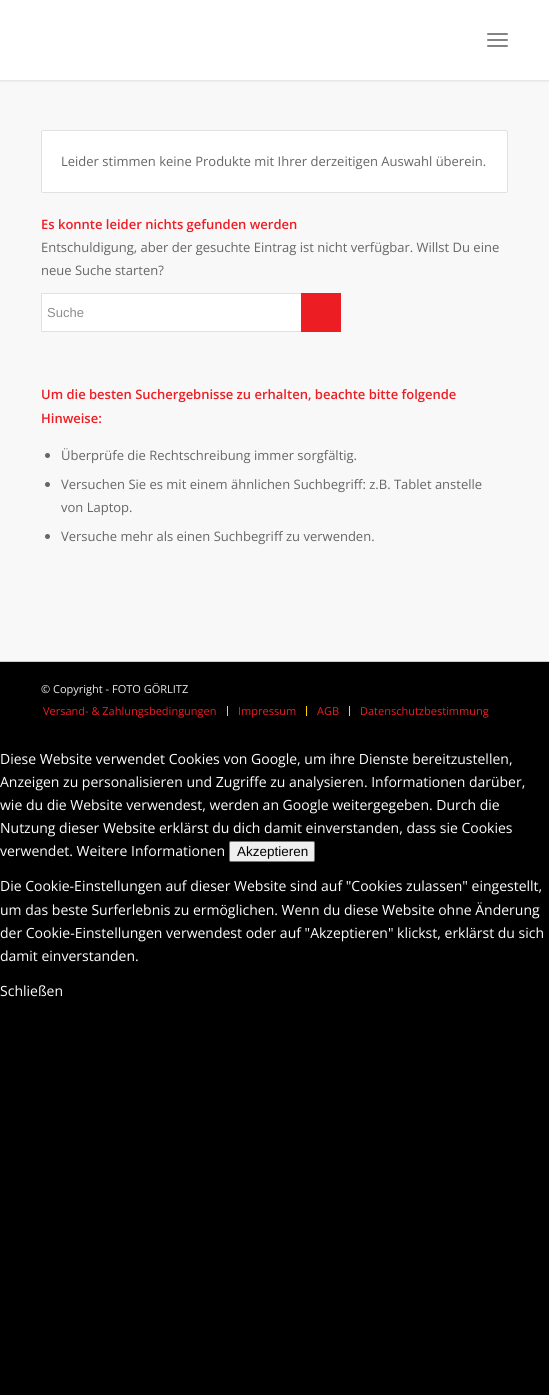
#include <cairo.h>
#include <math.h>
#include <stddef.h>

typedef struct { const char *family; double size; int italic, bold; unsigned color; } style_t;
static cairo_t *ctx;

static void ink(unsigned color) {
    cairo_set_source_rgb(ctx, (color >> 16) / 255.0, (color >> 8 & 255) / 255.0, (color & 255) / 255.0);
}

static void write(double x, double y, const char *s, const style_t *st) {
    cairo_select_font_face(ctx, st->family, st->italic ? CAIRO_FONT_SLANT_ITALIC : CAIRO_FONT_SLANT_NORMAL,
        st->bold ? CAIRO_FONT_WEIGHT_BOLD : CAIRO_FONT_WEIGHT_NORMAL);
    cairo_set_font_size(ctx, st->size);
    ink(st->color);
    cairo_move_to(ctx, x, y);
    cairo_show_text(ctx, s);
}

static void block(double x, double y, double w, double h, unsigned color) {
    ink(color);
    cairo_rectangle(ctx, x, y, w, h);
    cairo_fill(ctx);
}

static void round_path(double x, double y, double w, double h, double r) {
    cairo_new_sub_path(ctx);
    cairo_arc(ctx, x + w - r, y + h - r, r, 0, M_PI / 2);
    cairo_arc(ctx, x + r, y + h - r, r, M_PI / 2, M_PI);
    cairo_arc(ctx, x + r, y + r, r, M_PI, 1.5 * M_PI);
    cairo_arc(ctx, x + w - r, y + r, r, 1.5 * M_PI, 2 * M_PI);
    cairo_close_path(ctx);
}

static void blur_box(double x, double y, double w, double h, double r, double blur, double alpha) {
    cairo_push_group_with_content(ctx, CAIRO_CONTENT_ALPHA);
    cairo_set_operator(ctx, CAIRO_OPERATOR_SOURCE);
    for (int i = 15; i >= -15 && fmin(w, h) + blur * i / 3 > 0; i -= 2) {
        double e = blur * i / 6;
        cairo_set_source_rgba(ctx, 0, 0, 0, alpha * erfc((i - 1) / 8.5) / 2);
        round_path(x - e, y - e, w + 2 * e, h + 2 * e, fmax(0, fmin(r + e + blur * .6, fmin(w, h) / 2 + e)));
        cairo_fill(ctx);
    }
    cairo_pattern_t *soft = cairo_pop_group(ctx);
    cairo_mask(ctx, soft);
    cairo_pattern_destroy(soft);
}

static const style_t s1 = {"Open Sans", 13, 0, 0, 0x666666};
static const style_t s2 = {"Open Sans SemiBold", 13, 0, 0, 0xed1d24};
static const style_t s3 = {"Liberation Sans", 13, 0, 0, 0x8d8d8d};
static const style_t s4 = {"Open Sans", 11, 0, 0, 0xeeeeee};
static const style_t s5 = {"Open Sans", 11, 0, 0, 0xed1d24};
static const style_t s6 = {"Open Sans", 14, 0, 0, 0xffffff};
static const style_t s7 = {"Liberation Sans", 13.5, 0, 0, 0x000000};

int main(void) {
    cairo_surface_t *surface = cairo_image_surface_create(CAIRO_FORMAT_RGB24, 549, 1395);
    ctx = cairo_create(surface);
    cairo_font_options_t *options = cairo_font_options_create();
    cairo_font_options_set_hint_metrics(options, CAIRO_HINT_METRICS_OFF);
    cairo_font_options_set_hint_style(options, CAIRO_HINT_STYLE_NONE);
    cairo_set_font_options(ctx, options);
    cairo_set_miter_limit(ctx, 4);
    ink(0x000000);
    cairo_paint(ctx);
    block(0, 80, 549, 581, 0xf8f8f8);
    ink(0x000000);
    blur_box(-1, -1, 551, 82, 0, 1, 0.1);
    block(0, 0, 549, 80, 0xffffff);
    ink(0x848484);
    round_path(487, 39, 21, 2, 1);
    cairo_fill(ctx);
    round_path(487, 33, 21, 2, 1);
    cairo_fill(ctx);
    round_path(487, 45, 21, 2, 1);
    cairo_fill(ctx);
    ink(0xffffff);
    round_path(41.5, 130.5, 466, 62, 1.5);
    cairo_fill_preserve(ctx);
    ink(0xe1e1e1);
    cairo_set_line_width(ctx, 1);
    cairo_stroke(ctx);
    write(61, 166, "Leider stimmen keine Produkte mit Ihrer derzeitigen Auswahl überein.", &s1);
    write(41, 229, "Es konnte leider nichts gefunden werden", &s2);
    write(41, 252, "Entschuldigung, aber der gesuchte Eintrag ist nicht verfügbar. Willst Du eine", &s1);
    write(41, 275, "neue Suche starten?", &s1);
    block(42, 294, 259, 37, 0xffffff);
    cairo_rectangle(ctx, 41.5, 293.5, 299, 38);
    ink(0xe1e1e1);
    cairo_stroke(ctx);
    write(47, 317, "Suche", &s3);
    block(301, 293, 40, 39, 0xed1d24);
    write(41, 399, "Um die besten Suchergebnisse zu erhalten, beachte bitte folgende", &s2);
    write(41, 423, "Hinweise:", &s2);
    ink(0x666666);
    cairo_new_path(ctx);
    cairo_arc(ctx, 47.5, 455.5, 2.5, 0, 2 * M_PI);
    cairo_fill(ctx);
    write(61, 460, "Überprüfe die Rechtschreibung immer sorgfältig.", &s1);
    cairo_new_path(ctx);
    cairo_arc(ctx, 47.5, 484.5, 2.5, 0, 2 * M_PI);
    cairo_fill(ctx);
    write(61, 489, "Versuchen Sie es mit einem ähnlichen Suchbegriff: z.B. Tablet anstelle", &s1);
    write(61, 512, "von Laptop.", &s1);
    cairo_new_path(ctx);
    cairo_arc(ctx, 47.5, 536.5, 2.5, 0, 2 * M_PI);
    cairo_fill(ctx);
    write(61, 541, "Versuche mehr als einen Suchbegriff zu verwenden.", &s1);
    block(0, 661, 549, 1, 0xffd900);
    write(41, 693, "© Copyright - FOTO GÖRLITZ", &s4);
    write(43, 715, "Versand- & Zahlungsbedingungen", &s5);
    block(227, 706, 1, 10, 0xffd900);
    write(238, 715, "Impressum", &s5);
    block(306, 706, 1, 10, 0xffd900);
    write(317, 715, "AGB", &s5);
    block(349, 706, 1, 10, 0xffd900);
    write(360, 715, "Datenschutzbestimmung", &s5);
    write(0, 764, "Diese Website verwendet Cookies von Google, um ihre Dienste bereitzustellen,", &s6);
    write(0, 787, "Anzeigen zu personalisieren und Zugriffe zu analysieren. Informationen darüber,", &s6);
    write(0, 810, "wie du die Website verwendest, werden an Google weitergegeben. Durch die", &s6);
    write(0, 833, "Nutzung dieser Website erklärst du dich damit einverstanden, dass sie Cookies", &s6);
    write(0, 856, "verwendet. Weitere Informationen", &s6);
    ink(0xefefef);
    round_path(229.5, 841.5, 85, 20, 1.5);
    cairo_fill_preserve(ctx);
    ink(0x767676);
    cairo_stroke(ctx);
    write(237, 856, "Akzeptieren", &s7);
    write(0, 891, "Die Cookie-Einstellungen auf dieser Website sind auf \"Cookies zulassen\" eingestellt,", &s6);
    write(0, 915, "um das beste Surferlebnis zu ermöglichen. Wenn du diese Website ohne Änderung", &s6);
    write(0, 938, "der Cookie-Einstellungen verwendest oder auf \"Akzeptieren\" klickst, erklärst du sich", &s6);
    write(0, 961, "damit einverstanden.", &s6);
    write(0, 996, "Schließen", &s6);
    cairo_surface_write_to_png(surface, "screenshot.png");
    cairo_font_options_destroy(options);
    cairo_destroy(ctx);
    cairo_surface_destroy(surface);
    return 0;
}
